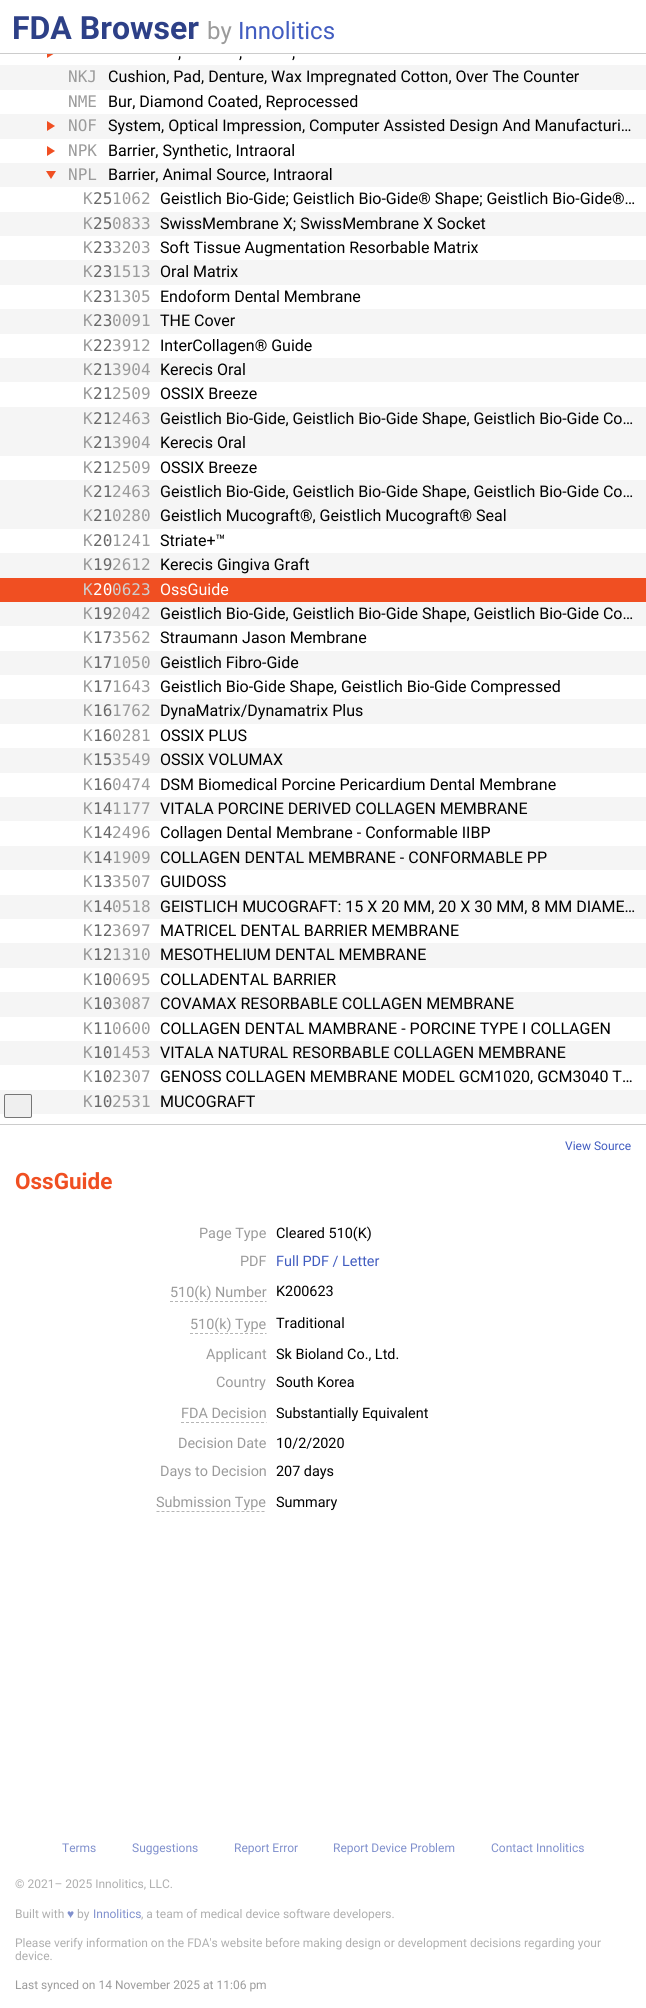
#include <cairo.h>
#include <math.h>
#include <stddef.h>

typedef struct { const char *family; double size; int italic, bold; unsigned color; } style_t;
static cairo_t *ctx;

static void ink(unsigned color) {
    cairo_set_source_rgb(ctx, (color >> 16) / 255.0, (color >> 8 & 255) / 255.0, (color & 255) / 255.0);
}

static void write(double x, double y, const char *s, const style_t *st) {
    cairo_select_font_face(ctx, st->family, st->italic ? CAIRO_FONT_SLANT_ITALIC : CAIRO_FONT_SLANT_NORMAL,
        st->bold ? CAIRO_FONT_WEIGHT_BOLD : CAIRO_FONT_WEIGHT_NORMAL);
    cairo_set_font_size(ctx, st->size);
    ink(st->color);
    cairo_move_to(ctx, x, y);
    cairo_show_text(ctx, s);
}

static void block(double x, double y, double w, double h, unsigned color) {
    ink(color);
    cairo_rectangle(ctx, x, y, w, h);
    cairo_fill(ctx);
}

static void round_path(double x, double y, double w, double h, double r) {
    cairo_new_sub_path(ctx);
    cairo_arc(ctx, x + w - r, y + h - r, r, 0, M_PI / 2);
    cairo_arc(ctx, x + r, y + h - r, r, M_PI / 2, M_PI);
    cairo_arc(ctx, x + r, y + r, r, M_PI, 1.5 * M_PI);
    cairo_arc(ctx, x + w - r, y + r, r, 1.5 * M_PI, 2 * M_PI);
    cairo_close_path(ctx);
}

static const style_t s1 = {"Roboto", 32, 0, 1, 0x2d4087};
static const style_t s2 = {"Roboto", 24, 0, 0, 0x9b9b9b};
static const style_t s3 = {"Roboto", 24, 0, 0, 0x415cc0};
static const style_t s4 = {"Roboto", 16, 0, 0, 0x000000};
static const style_t s5 = {"DejaVu Sans Mono", 16, 0, 0, 0x9b9b9b};
static const style_t s6 = {"DejaVu Sans Mono", 16, 0, 0, 0x686868};
static const style_t s7 = {"DejaVu Sans Mono", 16, 0, 0, 0xcecece};
static const style_t s8 = {"DejaVu Sans Mono", 16, 0, 0, 0xffffff};
static const style_t s9 = {"Roboto", 16, 0, 0, 0xffffff};
static const style_t s10 = {"Roboto", 12, 0, 0, 0x415cc0};
static const style_t s11 = {"Roboto", 22.5, 0, 1, 0xf04f22};
static const style_t s12 = {"Roboto", 14.4, 0, 0, 0x9b9b9b};
static const style_t s13 = {"Roboto", 14.4, 0, 0, 0x000000};
static const style_t s14 = {"Roboto", 14.4, 0, 0, 0x415cc0};
static const style_t s15 = {"Roboto", 12, 0, 0, 0x8090cd};
static const style_t s16 = {"Roboto", 12, 0, 0, 0xafafaf};
static const style_t s17 = {"Liberation Sans", 12, 0, 0, 0x8090cd};
static const style_t s18 = {"Roboto", 12, 0, 0, 0x9b9b9b};

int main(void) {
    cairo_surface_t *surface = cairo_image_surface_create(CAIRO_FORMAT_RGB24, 646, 2008);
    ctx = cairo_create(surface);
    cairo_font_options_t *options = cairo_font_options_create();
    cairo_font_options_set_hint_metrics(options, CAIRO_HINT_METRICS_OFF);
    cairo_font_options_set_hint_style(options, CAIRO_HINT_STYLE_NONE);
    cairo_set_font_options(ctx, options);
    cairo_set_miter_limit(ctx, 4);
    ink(0xffffff);
    cairo_paint(ctx);
    block(0, 53, 646, 1, 0xcccccc);
    write(12, 39, "FDA Browser", &s1);
    write(207, 39, "by", &s2);
    write(238, 39, "Innolitics", &s3);
    cairo_save(ctx);
    cairo_rectangle(ctx, 2, 54, 644, 11);
    cairo_clip(ctx);
    ink(0xf04f22);
    cairo_new_path(ctx);
    cairo_move_to(ctx, 47, 58);
    cairo_line_to(ctx, 47, 48);
    cairo_line_to(ctx, 55, 53);
    cairo_close_path(ctx);
    cairo_fill(ctx);
    cairo_restore(ctx);
    write(178, 58, ",", &s4);
    write(239, 58, ",", &s4);
    write(292, 58, ",", &s4);
    block(0, 65, 646, 25, 0xf5f5f5);
    write(68, 82, "NKJ", &s5);
    write(108, 82, "Cushion, Pad, Denture, Wax Impregnated Cotton, Over The Counter", &s4);
    write(68, 107, "NME", &s5);
    write(108, 107, "Bur, Diamond Coated, Reprocessed", &s4);
    block(0, 114, 646, 25, 0xf5f5f5);
    ink(0xf04f22);
    cairo_new_path(ctx);
    cairo_move_to(ctx, 47, 131);
    cairo_line_to(ctx, 47, 121);
    cairo_line_to(ctx, 55, 126);
    cairo_close_path(ctx);
    cairo_fill(ctx);
    write(68, 131, "NOF", &s5);
    write(108, 131, "System, Optical Impression, Computer Assisted Design And Manufacturi…", &s4);
    ink(0xf04f22);
    cairo_new_path(ctx);
    cairo_move_to(ctx, 47, 156);
    cairo_line_to(ctx, 47, 146);
    cairo_line_to(ctx, 55, 151);
    cairo_close_path(ctx);
    cairo_fill(ctx);
    write(68, 156, "NPK", &s5);
    write(108, 156, "Barrier, Synthetic, Intraoral", &s4);
    block(0, 163, 646, 951, 0xf5f5f5);
    ink(0xf04f22);
    cairo_new_path(ctx);
    cairo_move_to(ctx, 46, 171);
    cairo_line_to(ctx, 56, 171);
    cairo_line_to(ctx, 51, 179);
    cairo_close_path(ctx);
    cairo_fill(ctx);
    write(68, 180, "NPL", &s5);
    write(108, 180, "Barrier, Animal Source, Intraoral", &s4);
    block(0, 187, 646, 25, 0xffffff);
    write(83, 204, "K", &s5);
    write(93, 204, "25", &s6);
    write(112, 204, "1062", &s5);
    write(160, 204, "Geistlich Bio-Gide; Geistlich Bio-Gide® Shape; Geistlich Bio-Gide®…", &s4);
    write(83, 229, "K", &s5);
    write(93, 229, "25", &s6);
    write(112, 229, "0833", &s5);
    write(160, 229, "SwissMembrane X; SwissMembrane X Socket", &s4);
    block(0, 236, 646, 24, 0xffffff);
    write(83, 253, "K", &s5);
    write(93, 253, "23", &s6);
    write(112, 253, "3203", &s5);
    write(160, 253, "Soft Tissue Augmentation Resorbable Matrix", &s4);
    write(83, 277, "K", &s5);
    write(93, 277, "23", &s6);
    write(112, 277, "1513", &s5);
    write(160, 277, "Oral Matrix", &s4);
    block(0, 285, 646, 24, 0xffffff);
    write(83, 302, "K", &s5);
    write(93, 302, "23", &s6);
    write(112, 302, "1305", &s5);
    write(160, 302, "Endoform Dental Membrane", &s4);
    write(83, 326, "K", &s5);
    write(93, 326, "23", &s6);
    write(112, 326, "0091", &s5);
    write(160, 326, "THE Cover", &s4);
    block(0, 334, 646, 24, 0xffffff);
    write(83, 351, "K", &s5);
    write(93, 351, "22", &s6);
    write(112, 351, "3912", &s5);
    write(160, 351, "InterCollagen® Guide", &s4);
    write(83, 375, "K", &s5);
    write(93, 375, "21", &s6);
    write(112, 375, "3904", &s5);
    write(160, 375, "Kerecis Oral", &s4);
    block(0, 382, 646, 25, 0xffffff);
    write(83, 399, "K", &s5);
    write(93, 399, "21", &s6);
    write(112, 399, "2509", &s5);
    write(160, 399, "OSSIX Breeze", &s4);
    write(83, 424, "K", &s5);
    write(93, 424, "21", &s6);
    write(112, 424, "2463", &s5);
    write(160, 424, "Geistlich Bio-Gide, Geistlich Bio-Gide Shape, Geistlich Bio-Gide Co…", &s4);
    write(83, 448, "K", &s5);
    write(93, 448, "21", &s6);
    write(112, 448, "3904", &s5);
    write(160, 448, "Kerecis Oral", &s4);
    block(0, 456, 646, 24, 0xffffff);
    write(83, 473, "K", &s5);
    write(93, 473, "21", &s6);
    write(112, 473, "2509", &s5);
    write(160, 473, "OSSIX Breeze", &s4);
    write(83, 497, "K", &s5);
    write(93, 497, "21", &s6);
    write(112, 497, "2463", &s5);
    write(160, 497, "Geistlich Bio-Gide, Geistlich Bio-Gide Shape, Geistlich Bio-Gide Co…", &s4);
    write(83, 521, "K", &s5);
    write(93, 521, "21", &s6);
    write(112, 521, "0280", &s5);
    write(160, 521, "Geistlich Mucograft®, Geistlich Mucograft® Seal", &s4);
    block(0, 529, 646, 24, 0xffffff);
    write(83, 546, "K", &s5);
    write(93, 546, "20", &s6);
    write(112, 546, "1241", &s5);
    write(160, 546, "Striate+™", &s4);
    write(83, 570, "K", &s5);
    write(93, 570, "19", &s6);
    write(112, 570, "2612", &s5);
    write(160, 570, "Kerecis Gingiva Graft", &s4);
    block(0, 578, 646, 24, 0xf04f22);
    write(83, 595, "K", &s7);
    write(93, 595, "20", &s8);
    write(112, 595, "0623", &s7);
    write(160, 595, "OssGuide", &s9);
    write(83, 619, "K", &s5);
    write(93, 619, "19", &s6);
    write(112, 619, "2042", &s5);
    write(160, 619, "Geistlich Bio-Gide, Geistlich Bio-Gide Shape, Geistlich Bio-Gide Co…", &s4);
    block(0, 626, 646, 25, 0xffffff);
    write(83, 643, "K", &s5);
    write(93, 643, "17", &s6);
    write(112, 643, "3562", &s5);
    write(160, 643, "Straumann Jason Membrane", &s4);
    write(83, 668, "K", &s5);
    write(93, 668, "17", &s6);
    write(112, 668, "1050", &s5);
    write(160, 668, "Geistlich Fibro-Gide", &s4);
    block(0, 675, 646, 24, 0xffffff);
    write(83, 692, "K", &s5);
    write(93, 692, "17", &s6);
    write(112, 692, "1643", &s5);
    write(160, 692, "Geistlich Bio-Gide Shape, Geistlich Bio-Gide Compressed", &s4);
    write(83, 716, "K", &s5);
    write(93, 716, "16", &s6);
    write(112, 716, "1762", &s5);
    write(160, 716, "DynaMatrix/Dynamatrix Plus", &s4);
    block(0, 724, 646, 24, 0xffffff);
    write(83, 741, "K", &s5);
    write(93, 741, "16", &s6);
    write(112, 741, "0281", &s5);
    write(160, 741, "OSSIX PLUS", &s4);
    write(83, 765, "K", &s5);
    write(93, 765, "15", &s6);
    write(112, 765, "3549", &s5);
    write(160, 765, "OSSIX VOLUMAX", &s4);
    block(0, 773, 646, 24, 0xffffff);
    write(83, 790, "K", &s5);
    write(93, 790, "16", &s6);
    write(112, 790, "0474", &s5);
    write(160, 790, "DSM Biomedical Porcine Pericardium Dental Membrane", &s4);
    write(83, 814, "K", &s5);
    write(93, 814, "14", &s6);
    write(112, 814, "1177", &s5);
    write(160, 814, "VITALA PORCINE DERIVED COLLAGEN MEMBRANE", &s4);
    block(0, 821, 646, 25, 0xffffff);
    write(83, 838, "K", &s5);
    write(93, 838, "14", &s6);
    write(112, 838, "2496", &s5);
    write(160, 838, "Collagen Dental Membrane - Conformable IIBP", &s4);
    write(83, 863, "K", &s5);
    write(93, 863, "14", &s6);
    write(112, 863, "1909", &s5);
    write(160, 863, "COLLAGEN DENTAL MEMBRANE - CONFORMABLE PP", &s4);
    block(0, 870, 646, 25, 0xffffff);
    write(83, 887, "K", &s5);
    write(93, 887, "13", &s6);
    write(112, 887, "3507", &s5);
    write(160, 887, "GUIDOSS", &s4);
    write(83, 912, "K", &s5);
    write(93, 912, "14", &s6);
    write(112, 912, "0518", &s5);
    write(160, 912, "GEISTLICH MUCOGRAFT: 15 X 20 MM, 20 X 30 MM, 8 MM DIAME…", &s4);
    block(0, 919, 646, 24, 0xffffff);
    write(83, 936, "K", &s5);
    write(93, 936, "12", &s6);
    write(112, 936, "3697", &s5);
    write(160, 936, "MATRICEL DENTAL BARRIER MEMBRANE", &s4);
    write(83, 960, "K", &s5);
    write(93, 960, "12", &s6);
    write(112, 960, "1310", &s5);
    write(160, 960, "MESOTHELIUM DENTAL MEMBRANE", &s4);
    block(0, 968, 646, 24, 0xffffff);
    write(83, 985, "K", &s5);
    write(93, 985, "10", &s6);
    write(112, 985, "0695", &s5);
    write(160, 985, "COLLADENTAL BARRIER", &s4);
    write(83, 1009, "K", &s5);
    write(93, 1009, "10", &s6);
    write(112, 1009, "3087", &s5);
    write(160, 1009, "COVAMAX RESORBABLE COLLAGEN MEMBRANE", &s4);
    block(0, 1017, 646, 24, 0xffffff);
    write(83, 1034, "K", &s5);
    write(93, 1034, "11", &s6);
    write(112, 1034, "0600", &s5);
    write(160, 1034, "COLLAGEN DENTAL MAMBRANE - PORCINE TYPE I COLLAGEN", &s4);
    write(83, 1058, "K", &s5);
    write(93, 1058, "10", &s6);
    write(112, 1058, "1453", &s5);
    write(160, 1058, "VITALA NATURAL RESORBABLE COLLAGEN MEMBRANE", &s4);
    block(0, 1065, 646, 25, 0xffffff);
    write(83, 1082, "K", &s5);
    write(93, 1082, "10", &s6);
    write(112, 1082, "2307", &s5);
    write(160, 1082, "GENOSS COLLAGEN MEMBRANE MODEL GCM1020, GCM3040 T…", &s4);
    write(83, 1107, "K", &s5);
    write(93, 1107, "10", &s6);
    write(112, 1107, "2531", &s5);
    write(160, 1107, "MUCOGRAFT", &s4);
    block(0, 1124, 646, 1, 0xcccccc);
    ink(0xefefef);
    round_path(4.5, 1094.5, 27, 23, 1.5);
    cairo_fill_preserve(ctx);
    ink(0x767676);
    cairo_set_line_width(ctx, 1);
    cairo_stroke(ctx);
    write(565, 1150, "View Source", &s10);
    write(15, 1189, "OssGuide", &s11);
    write(199, 1238, "Page Type", &s12);
    write(276, 1238, "Cleared 510(K)", &s13);
    write(240, 1266, "PDF", &s12);
    write(276, 1266, "Full PDF / Letter", &s14);
    write(170, 1297, "510(k) Number", &s12);
    cairo_new_path(ctx);
    cairo_move_to(ctx, 170, 1301.5);
    cairo_line_to(ctx, 266.5, 1301.5);
    ink(0xb5b5b5);
    cairo_set_dash(ctx, (double[]){3, 2}, 2, 0);
    cairo_stroke(ctx);
    write(276, 1296, "K200623", &s13);
    write(190, 1329, "510(k) Type", &s12);
    cairo_new_path(ctx);
    cairo_move_to(ctx, 190, 1333.5);
    cairo_line_to(ctx, 266.5, 1333.5);
    ink(0xb5b5b5);
    cairo_stroke(ctx);
    write(276, 1328, "Traditional", &s13);
    write(206, 1359, "Applicant", &s12);
    write(276, 1359, "Sk Bioland Co., Ltd.", &s13);
    write(216, 1387, "Country", &s12);
    write(276, 1387, "South Korea", &s13);
    write(181, 1418, "FDA Decision", &s12);
    cairo_new_path(ctx);
    cairo_move_to(ctx, 181, 1422.5);
    cairo_line_to(ctx, 266.5, 1422.5);
    ink(0xb5b5b5);
    cairo_stroke(ctx);
    write(276, 1418, "Substantially Equivalent", &s13);
    write(178, 1448, "Decision Date", &s12);
    write(276, 1448, "10/2/2020", &s13);
    write(160, 1476, "Days to Decision", &s12);
    write(276, 1476, "207 days", &s13);
    write(156, 1507, "Submission Type", &s12);
    cairo_new_path(ctx);
    cairo_move_to(ctx, 156.5, 1511.5);
    cairo_line_to(ctx, 266.5, 1511.5);
    ink(0xb5b5b5);
    cairo_stroke(ctx);
    write(276, 1507, "Summary", &s13);
    write(62, 1852, "Terms", &s15);
    write(132, 1852, "Suggestions", &s15);
    write(234, 1852, "Report Error", &s15);
    write(333, 1852, "Report Device Problem", &s15);
    write(491, 1852, "Contact Innolitics", &s15);
    write(15, 1888, "© 2021– 2025 Innolitics, LLC.", &s16);
    write(15, 1918, "Built with", &s16);
    write(67, 1918, "♥", &s17);
    write(77, 1918, "by", &s16);
    write(93, 1918, "Innolitics", &s15);
    write(141, 1918, ", a team of medical device software developers.", &s16);
    write(15, 1947, "Please verify information on the FDA's website before making design or development decisions regarding your", &s16);
    write(15, 1960, "device.", &s16);
    write(15, 1989, "Last synced on 14 November 2025 at 11:06 pm", &s18);
    cairo_surface_write_to_png(surface, "screenshot.png");
    cairo_font_options_destroy(options);
    cairo_destroy(ctx);
    cairo_surface_destroy(surface);
    return 0;
}
